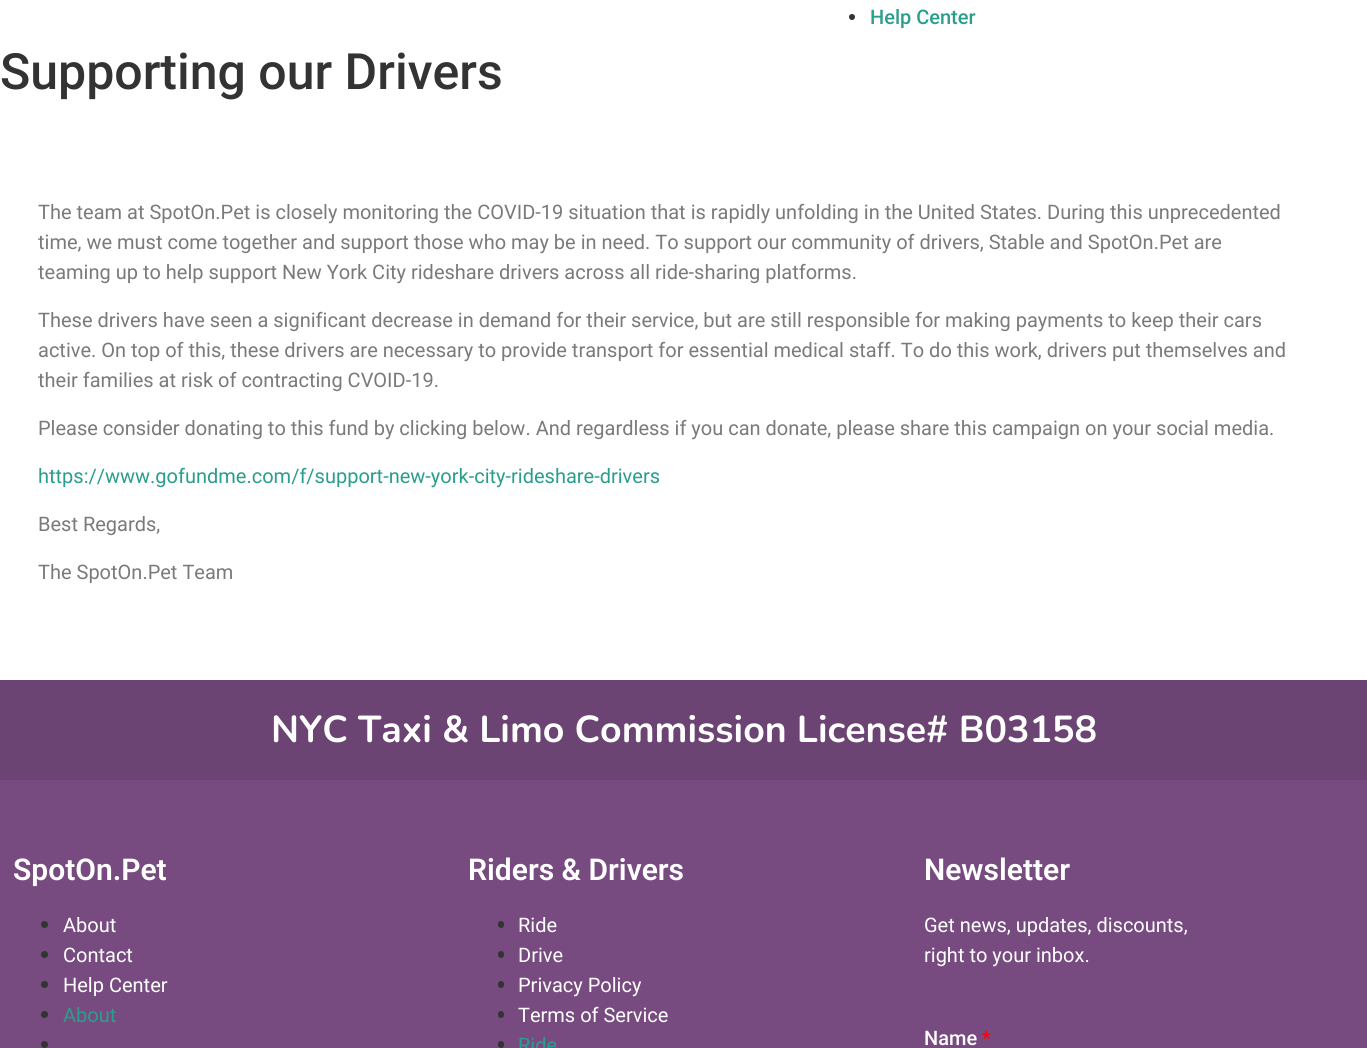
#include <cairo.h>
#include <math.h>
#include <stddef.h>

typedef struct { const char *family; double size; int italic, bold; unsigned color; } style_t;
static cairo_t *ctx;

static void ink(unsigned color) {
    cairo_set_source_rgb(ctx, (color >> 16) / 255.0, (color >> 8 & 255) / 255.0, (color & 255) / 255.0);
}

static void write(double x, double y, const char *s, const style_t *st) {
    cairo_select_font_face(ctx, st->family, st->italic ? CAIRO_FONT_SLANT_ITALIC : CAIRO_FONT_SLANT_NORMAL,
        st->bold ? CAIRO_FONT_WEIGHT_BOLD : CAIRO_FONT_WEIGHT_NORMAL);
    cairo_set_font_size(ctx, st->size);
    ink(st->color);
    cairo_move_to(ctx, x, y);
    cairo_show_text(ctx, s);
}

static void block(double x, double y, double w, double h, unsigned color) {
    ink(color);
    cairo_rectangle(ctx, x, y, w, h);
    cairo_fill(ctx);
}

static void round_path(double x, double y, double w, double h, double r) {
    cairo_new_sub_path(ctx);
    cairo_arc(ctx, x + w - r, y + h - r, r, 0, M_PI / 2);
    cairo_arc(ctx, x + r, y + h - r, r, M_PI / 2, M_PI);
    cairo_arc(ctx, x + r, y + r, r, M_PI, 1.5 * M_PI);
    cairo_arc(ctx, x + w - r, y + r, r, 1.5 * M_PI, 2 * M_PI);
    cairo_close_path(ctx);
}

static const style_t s1 = {"Roboto Medium", 20, 0, 0, 0x299e8c};
static const style_t s2 = {"Roboto Medium", 50, 0, 0, 0x333333};
static const style_t s3 = {"Roboto", 20, 0, 0, 0x7a7a7a};
static const style_t s4 = {"Roboto", 20, 0, 0, 0x299e8c};
static const style_t s5 = {"Nunito", 37.5, 0, 1, 0xffffff};
static const style_t s6 = {"Roboto SemiBold", 30, 0, 0, 0xffffff};
static const style_t s7 = {"Roboto", 20, 0, 0, 0xffffff};
static const style_t s8 = {"Roboto Medium", 20, 0, 0, 0xffffff};
static const style_t s9 = {"Roboto", 20, 0, 0, 0xff0000};

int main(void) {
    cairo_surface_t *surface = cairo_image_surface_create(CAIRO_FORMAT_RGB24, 1367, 1048);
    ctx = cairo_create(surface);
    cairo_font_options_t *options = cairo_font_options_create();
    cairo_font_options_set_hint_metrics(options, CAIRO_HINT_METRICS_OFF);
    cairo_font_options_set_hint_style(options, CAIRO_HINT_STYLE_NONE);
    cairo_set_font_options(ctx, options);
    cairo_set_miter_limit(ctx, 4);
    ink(0xffffff);
    cairo_paint(ctx);
    ink(0x333333);
    cairo_arc(ctx, 852, 17, 3, 0, 2 * M_PI);
    cairo_fill(ctx);
    write(870, 24, "Help Center", &s1);
    write(0, 89, "Supporting our Drivers", &s2);
    write(38, 219, "The team at SpotOn.Pet is closely monitoring the COVID-19 situation that is rapidly unfolding in the United States. During this unprecedented", &s3);
    write(38, 249, "time, we must come together and support those who may be in need. To support our community of drivers, Stable and SpotOn.Pet are", &s3);
    write(38, 279, "teaming up to help support New York City rideshare drivers across all ride-sharing platforms.", &s3);
    write(38, 327, "These drivers have seen a significant decrease in demand for their service, but are still responsible for making payments to keep their cars", &s3);
    write(38, 357, "active. On top of this, these drivers are necessary to provide transport for essential medical staff. To do this work, drivers put themselves and", &s3);
    write(38, 387, "their families at risk of contracting CVOID-19.", &s3);
    write(38, 435, "Please consider donating to this fund by clicking below. And regardless if you can donate, please share this campaign on your social media.", &s3);
    write(38, 483, "https://www.gofundme.com/f/support-new-york-city-rideshare-drivers", &s4);
    write(38, 531, "Best Regards,", &s3);
    write(38, 579, "The SpotOn.Pet Team", &s3);
    block(0, 680, 1367, 100, 0x6b4473);
    write(271, 742, "NYC Taxi & Limo Commission License# B03158", &s5);
    block(0, 780, 1367, 268, 0x774b80);
    write(13, 880, "SpotOn.Pet", &s6);
    ink(0x333333);
    cairo_new_path(ctx);
    cairo_arc(ctx, 44.5, 924.5, 3.5, 0, 2 * M_PI);
    cairo_fill(ctx);
    write(63, 932, "About", &s7);
    ink(0x333333);
    cairo_new_path(ctx);
    cairo_arc(ctx, 44.5, 954.5, 3.5, 0, 2 * M_PI);
    cairo_fill(ctx);
    write(63, 962, "Contact", &s7);
    ink(0x333333);
    cairo_new_path(ctx);
    cairo_arc(ctx, 44.5, 984.5, 3.5, 0, 2 * M_PI);
    cairo_fill(ctx);
    write(63, 992, "Help Center", &s7);
    ink(0x333333);
    cairo_new_path(ctx);
    cairo_arc(ctx, 44.5, 1014.5, 3.5, 0, 2 * M_PI);
    cairo_fill(ctx);
    write(63, 1022, "About", &s4);
    ink(0x333333);
    cairo_new_path(ctx);
    cairo_arc(ctx, 44.5, 1044.5, 3.5, 0, 2 * M_PI);
    cairo_fill(ctx);
    write(468, 880, "Riders & Drivers", &s6);
    ink(0x333333);
    round_path(498, 921, 6, 7, 3);
    cairo_fill(ctx);
    write(518, 932, "Ride", &s7);
    ink(0x333333);
    round_path(498, 951, 6, 7, 3);
    cairo_fill(ctx);
    write(518, 962, "Drive", &s7);
    ink(0x333333);
    round_path(498, 981, 6, 7, 3);
    cairo_fill(ctx);
    write(518, 992, "Privacy Policy", &s7);
    ink(0x333333);
    round_path(498, 1011, 6, 7, 3);
    cairo_fill(ctx);
    write(518, 1022, "Terms of Service", &s7);
    ink(0x333333);
    round_path(498, 1041, 6, 7, 3);
    cairo_fill(ctx);
    write(518, 1052, "Ride", &s4);
    write(924, 880, "Newsletter", &s6);
    write(924, 932, "Get news, updates, discounts,", &s7);
    write(924, 962, "right to your inbox.", &s7);
    write(924, 1045, "Name", &s8);
    write(982, 1045, "*", &s9);
    cairo_surface_write_to_png(surface, "screenshot.png");
    cairo_font_options_destroy(options);
    cairo_destroy(ctx);
    cairo_surface_destroy(surface);
    return 0;
}
